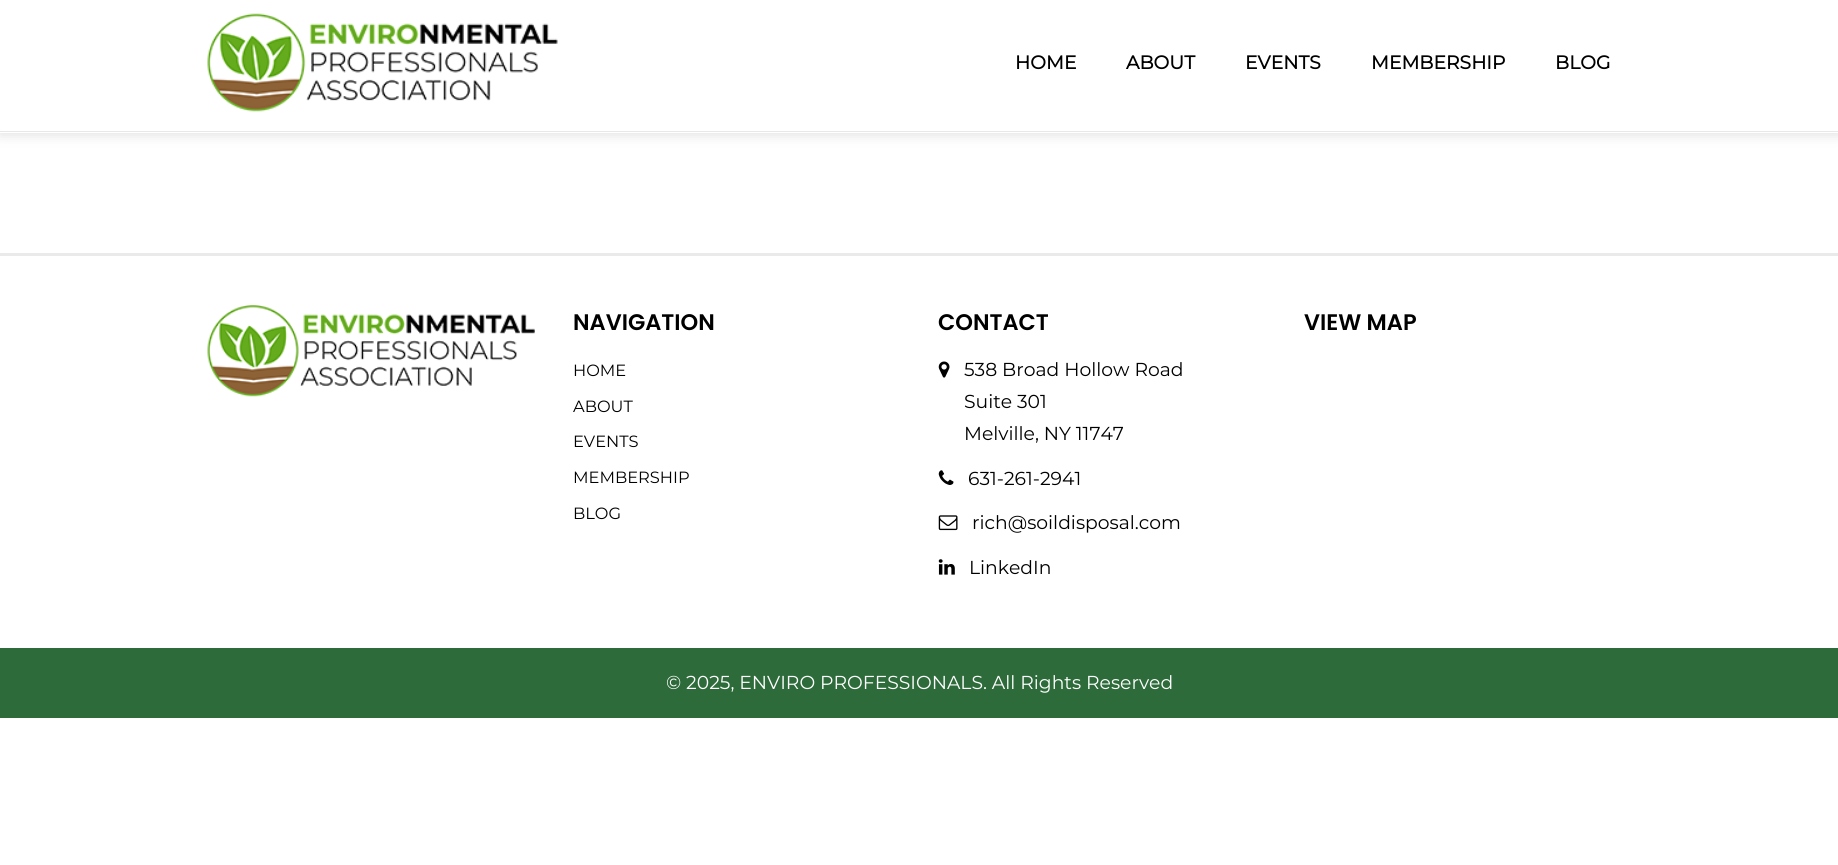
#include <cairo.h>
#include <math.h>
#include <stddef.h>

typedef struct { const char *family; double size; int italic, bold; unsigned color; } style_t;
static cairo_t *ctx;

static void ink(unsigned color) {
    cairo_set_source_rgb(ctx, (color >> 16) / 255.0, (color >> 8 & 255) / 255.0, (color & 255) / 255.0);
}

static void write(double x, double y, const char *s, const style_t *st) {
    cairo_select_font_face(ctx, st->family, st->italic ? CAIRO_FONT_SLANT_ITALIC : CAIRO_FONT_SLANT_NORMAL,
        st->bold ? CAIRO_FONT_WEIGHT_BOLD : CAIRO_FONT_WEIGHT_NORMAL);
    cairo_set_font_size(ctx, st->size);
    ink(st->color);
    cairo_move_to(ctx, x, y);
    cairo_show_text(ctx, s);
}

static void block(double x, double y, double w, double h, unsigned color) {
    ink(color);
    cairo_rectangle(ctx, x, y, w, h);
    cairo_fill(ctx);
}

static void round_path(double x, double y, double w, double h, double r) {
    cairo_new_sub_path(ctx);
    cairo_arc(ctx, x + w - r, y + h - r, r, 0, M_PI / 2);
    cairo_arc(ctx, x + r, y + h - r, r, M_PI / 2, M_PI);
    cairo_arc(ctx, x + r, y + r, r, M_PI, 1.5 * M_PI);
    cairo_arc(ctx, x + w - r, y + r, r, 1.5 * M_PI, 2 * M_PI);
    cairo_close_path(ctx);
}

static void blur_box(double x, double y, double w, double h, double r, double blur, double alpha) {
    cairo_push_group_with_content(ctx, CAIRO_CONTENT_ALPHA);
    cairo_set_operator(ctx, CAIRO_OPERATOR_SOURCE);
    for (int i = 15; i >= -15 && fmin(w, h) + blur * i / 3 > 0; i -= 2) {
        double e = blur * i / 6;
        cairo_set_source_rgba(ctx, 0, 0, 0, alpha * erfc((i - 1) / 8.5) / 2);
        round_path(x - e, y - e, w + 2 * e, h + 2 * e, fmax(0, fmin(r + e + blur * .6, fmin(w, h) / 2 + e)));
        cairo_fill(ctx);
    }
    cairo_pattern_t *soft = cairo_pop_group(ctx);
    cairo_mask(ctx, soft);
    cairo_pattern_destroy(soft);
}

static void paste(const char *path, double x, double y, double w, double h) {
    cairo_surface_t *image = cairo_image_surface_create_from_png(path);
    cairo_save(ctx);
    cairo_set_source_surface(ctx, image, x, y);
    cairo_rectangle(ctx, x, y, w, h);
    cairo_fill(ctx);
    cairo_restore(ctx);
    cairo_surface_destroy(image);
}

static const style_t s1 = {"Montserrat", 18.75, 0, 1, 0x000000};
static const style_t s2 = {"Poppins SemiBold", 22.5, 0, 0, 0x000000};
static const style_t s3 = {"Montserrat Thin", 16.25, 0, 0, 0x000000};
static const style_t s4 = {"Montserrat Thin", 18.75, 0, 0, 0x000000};
static const style_t s5 = {"Montserrat Thin", 18.75, 0, 0, 0xffffff};

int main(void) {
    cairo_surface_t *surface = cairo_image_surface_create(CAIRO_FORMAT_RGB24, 1838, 865);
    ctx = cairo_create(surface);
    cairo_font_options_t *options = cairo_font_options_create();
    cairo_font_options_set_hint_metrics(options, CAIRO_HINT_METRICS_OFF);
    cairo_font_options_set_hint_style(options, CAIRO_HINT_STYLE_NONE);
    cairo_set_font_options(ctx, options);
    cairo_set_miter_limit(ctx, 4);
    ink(0xffffff);
    cairo_paint(ctx);
    ink(0xe2e2e2);
    blur_box(0, 3, 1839, 132, 0, 6, 1);
    block(0, 0, 1838, 133, 0xffffff);
    block(0, 131, 1838, 1, 0xe8e8e8);
    paste("pic1.png", 207, 13, 351, 99);
    write(1015, 69, "HOME", &s1);
    write(1126, 69, "ABOUT", &s1);
    write(1245, 69, "EVENTS", &s1);
    write(1371, 69, "MEMBERSHIP", &s1);
    write(1555, 69, "BLOG", &s1);
    block(0, 253, 1838, 3, 0xeaeaea);
    paste("pic2.png", 207, 305, 328, 92);
    write(573, 330, "NAVIGATION", &s2);
    write(573, 376, "HOME", &s3);
    write(573, 412, "ABOUT", &s3);
    write(573, 447, "EVENTS", &s3);
    write(573, 483, "MEMBERSHIP", &s3);
    write(573, 519, "BLOG", &s3);
    write(938, 330, "CONTACT", &s2);
    paste("pic3.png", 938, 361, 12, 17);
    write(964, 376, "538 Broad Hollow Road", &s4);
    write(964, 408, "Suite 301", &s4);
    write(964, 440, "Melville, NY 11747", &s4);
    paste("pic4.png", 938, 470, 16, 15);
    write(968, 485, "631-261-2941", &s4);
    paste("pic5.png", 938, 515, 20, 16);
    write(972, 529, "rich@soildisposal.com", &s4);
    paste("pic6.png", 938, 559, 17, 16);
    write(969, 574, "LinkedIn", &s4);
    write(1304, 330, "VIEW MAP", &s2);
    block(0, 648, 1838, 70, 0x2e6b3a);
    write(666, 689, "© 2025, ENVIRO PROFESSIONALS. All Rights Reserved", &s5);
    cairo_surface_write_to_png(surface, "screenshot.png");
    cairo_font_options_destroy(options);
    cairo_destroy(ctx);
    cairo_surface_destroy(surface);
    return 0;
}
